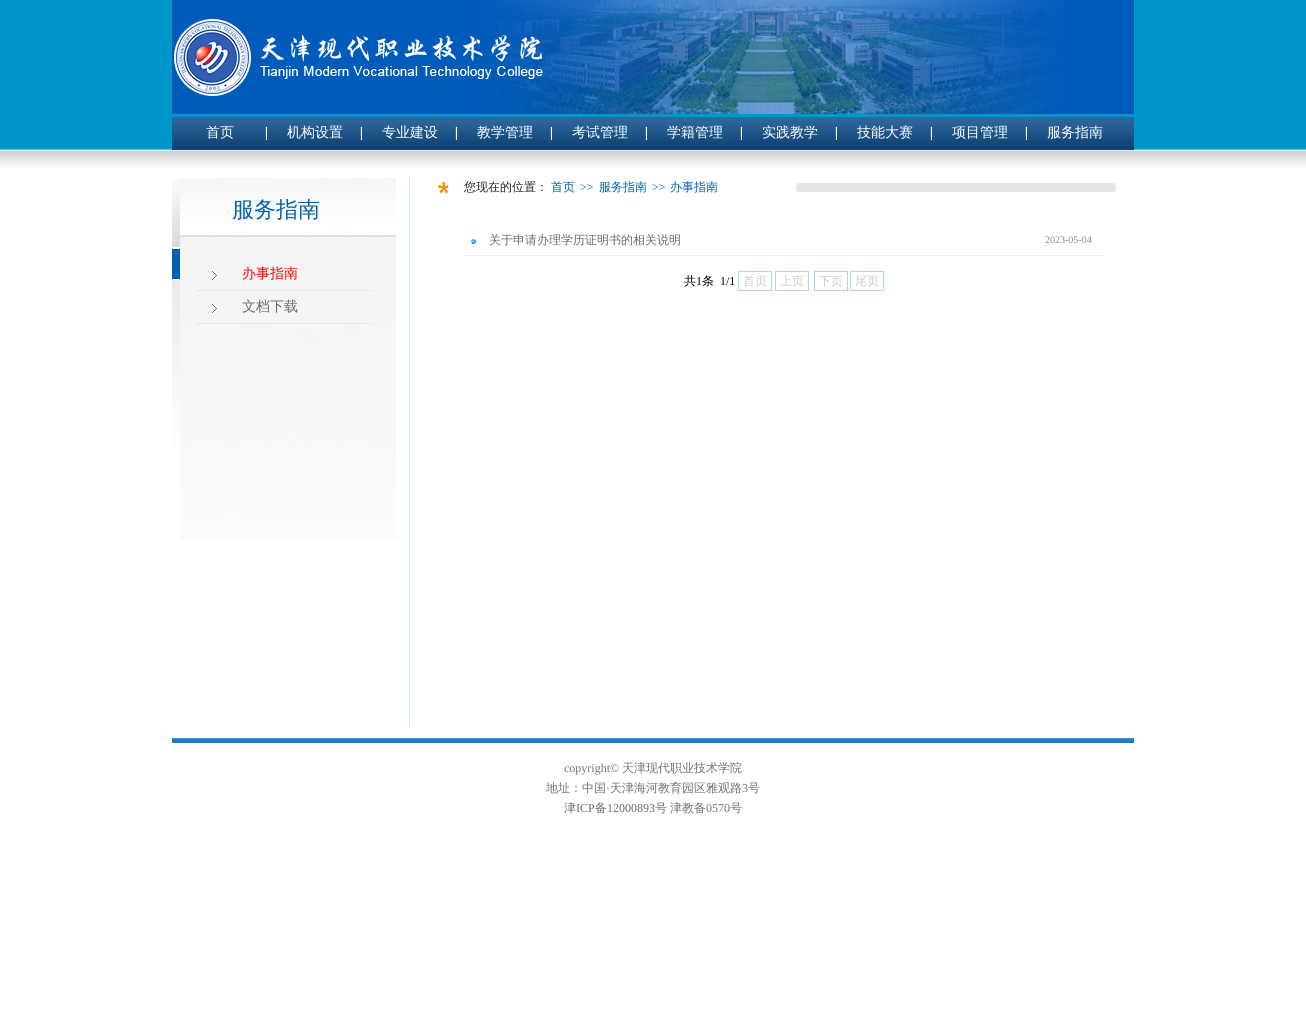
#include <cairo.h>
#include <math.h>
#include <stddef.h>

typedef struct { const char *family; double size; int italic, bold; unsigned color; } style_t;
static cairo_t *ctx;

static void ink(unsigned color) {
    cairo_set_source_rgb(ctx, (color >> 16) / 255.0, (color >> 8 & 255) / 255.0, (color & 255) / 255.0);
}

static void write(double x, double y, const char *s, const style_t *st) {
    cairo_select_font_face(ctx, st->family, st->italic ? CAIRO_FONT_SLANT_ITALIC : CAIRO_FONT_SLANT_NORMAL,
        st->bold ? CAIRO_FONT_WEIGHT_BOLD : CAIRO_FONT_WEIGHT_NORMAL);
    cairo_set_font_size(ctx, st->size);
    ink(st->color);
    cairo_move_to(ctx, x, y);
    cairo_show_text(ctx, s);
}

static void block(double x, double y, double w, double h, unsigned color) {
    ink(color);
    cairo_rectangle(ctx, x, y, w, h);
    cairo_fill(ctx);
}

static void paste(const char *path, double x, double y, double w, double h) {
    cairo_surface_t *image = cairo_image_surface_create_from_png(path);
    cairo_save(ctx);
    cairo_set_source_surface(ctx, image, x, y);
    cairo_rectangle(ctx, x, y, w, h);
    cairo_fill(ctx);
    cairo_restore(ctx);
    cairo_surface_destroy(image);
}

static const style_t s1 = {"WenQuanYi Zen Hei Medium", 14, 0, 0, 0xffffff};
static const style_t s2 = {"WenQuanYi Zen Hei Medium", 22, 0, 0, 0x0061b1};
static const style_t s3 = {"WenQuanYi Zen Hei Medium", 14, 0, 0, 0xff0000};
static const style_t s4 = {"WenQuanYi Zen Hei Medium", 14, 0, 0, 0x6b6b6b};
static const style_t s5 = {"WenQuanYi Zen Hei Medium", 12, 0, 0, 0x222222};
static const style_t s6 = {"WenQuanYi Zen Hei Medium", 12, 0, 0, 0x0061b1};
static const style_t s7 = {"Liberation Serif", 12, 0, 0, 0x0061b1};
static const style_t s8 = {"WenQuanYi Zen Hei Medium", 12, 0, 0, 0x6b6b6b};
static const style_t s9 = {"Liberation Serif", 10, 0, 0, 0x888888};
static const style_t s10 = {"WenQuanYi Zen Hei Medium", 12, 0, 0, 0x000000};
static const style_t s11 = {"Liberation Serif", 12, 0, 0, 0x000000};
static const style_t s12 = {"WenQuanYi Zen Hei Medium", 12, 0, 0, 0xcccccc};
static const style_t s13 = {"Liberation Serif", 12, 0, 0, 0x727272};
static const style_t s14 = {"WenQuanYi Zen Hei Medium", 12, 0, 0, 0x727272};
static const style_t s15 = {"Liberation Serif", 12, 0, 0, 0x6b6b6b};

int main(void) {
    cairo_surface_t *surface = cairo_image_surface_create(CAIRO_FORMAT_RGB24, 1306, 1035);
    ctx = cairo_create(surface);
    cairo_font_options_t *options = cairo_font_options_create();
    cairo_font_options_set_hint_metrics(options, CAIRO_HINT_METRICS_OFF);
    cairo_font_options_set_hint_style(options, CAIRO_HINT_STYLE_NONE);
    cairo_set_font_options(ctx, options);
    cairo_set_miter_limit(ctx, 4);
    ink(0xffffff);
    cairo_paint(ctx);
    paste("pic1.png", 0, 0, 1306, 168);
    paste("pic2.png", 172, 0, 962, 114);
    paste("pic3.png", 174, 19, 369, 77);
    paste("pic4.png", 172, 117, 962, 33);
    paste("pic5.png", 265, 127, 2, 13);
    write(206, 137, "首页", &s1);
    paste("pic5.png", 360, 127, 2, 13);
    write(287, 137, "机构设置", &s1);
    paste("pic5.png", 455, 127, 2, 13);
    write(382, 137, "专业建设", &s1);
    paste("pic5.png", 550, 127, 2, 13);
    write(477, 137, "教学管理", &s1);
    paste("pic5.png", 645, 127, 2, 13);
    write(572, 137, "考试管理", &s1);
    paste("pic5.png", 740, 127, 2, 13);
    write(667, 137, "学籍管理", &s1);
    paste("pic5.png", 835, 127, 2, 13);
    write(762, 137, "实践教学", &s1);
    paste("pic5.png", 930, 127, 2, 13);
    write(857, 137, "技能大赛", &s1);
    paste("pic5.png", 1025, 127, 2, 13);
    write(952, 137, "项目管理", &s1);
    write(1047, 137, "服务指南", &s1);
    block(409, 178, 1, 550, 0xcbeafc);
    paste("pic6.png", 172, 178, 224, 361);
    write(232, 217, "服务指南", &s2);
    paste("pic7.png", 212, 271, 5, 9);
    cairo_new_path(ctx);
    cairo_move_to(ctx, 197, 290.5);
    cairo_line_to(ctx, 372, 290.5);
    ink(0xdddddd);
    cairo_set_line_width(ctx, 1);
    cairo_set_dash(ctx, (double[]){1, 1}, 2, 0);
    cairo_stroke(ctx);
    write(242, 278, "办事指南", &s3);
    paste("pic7.png", 212, 304, 5, 9);
    cairo_new_path(ctx);
    cairo_move_to(ctx, 197, 323.5);
    cairo_line_to(ctx, 372, 323.5);
    ink(0xdddddd);
    cairo_stroke(ctx);
    write(242, 311, "文档下载", &s4);
    paste("pic8.png", 434, 178, 682, 16);
    write(464, 191, "您现在的位置：", &s5);
    write(551, 191, "首页", &s6);
    write(580, 191, ">>", &s7);
    write(599, 191, "服务指南", &s6);
    write(652, 191, ">>", &s7);
    write(670, 191, "办事指南", &s6);
    paste("pic9.png", 471, 239, 5, 5);
    cairo_new_path(ctx);
    cairo_move_to(ctx, 464, 255.5);
    cairo_line_to(ctx, 1104, 255.5);
    ink(0xdddddd);
    cairo_stroke(ctx);
    write(489, 244, "关于申请办理学历证明书的相关说明", &s8);
    write(1045, 243, "2023-05-04", &s9);
    write(684, 285, "共", &s10);
    write(696, 285, "1", &s11);
    write(702, 285, "条", &s10);
    write(720, 285, "1/1", &s11);
    cairo_rectangle(ctx, 738.5, 271.5, 33, 19);
    ink(0xafd5f5);
    cairo_set_dash(ctx, NULL, 0, 0);
    cairo_stroke(ctx);
    write(743, 285, "首页", &s12);
    cairo_rectangle(ctx, 775.5, 271.5, 33, 19);
    ink(0xafd5f5);
    cairo_stroke(ctx);
    write(780, 285, "上页", &s12);
    cairo_rectangle(ctx, 814.5, 271.5, 33, 19);
    ink(0xafd5f5);
    cairo_stroke(ctx);
    write(819, 285, "下页", &s12);
    cairo_rectangle(ctx, 850.5, 271.5, 33, 19);
    ink(0xafd5f5);
    cairo_stroke(ctx);
    write(855, 285, "尾页", &s12);
    paste("pic10.png", 172, 738, 962, 5);
    write(564, 772, "copyright©", &s13);
    write(622, 772, "天津现代职业技术学院", &s14);
    write(546, 792, "地址：中国", &s14);
    write(606, 792, "·", &s13);
    write(610, 792, "天津海河教育园区雅观路", &s14);
    write(742, 792, "3", &s13);
    write(748, 792, "号", &s14);
    write(564, 812, "津", &s8);
    write(576, 812, "ICP", &s15);
    write(595, 812, "备", &s8);
    write(607, 812, "12000893", &s15);
    write(655, 812, "号", &s8);
    write(670, 812, "津教备", &s14);
    write(706, 812, "0570", &s13);
    write(730, 812, "号", &s14);
    cairo_surface_write_to_png(surface, "screenshot.png");
    cairo_font_options_destroy(options);
    cairo_destroy(ctx);
    cairo_surface_destroy(surface);
    return 0;
}
